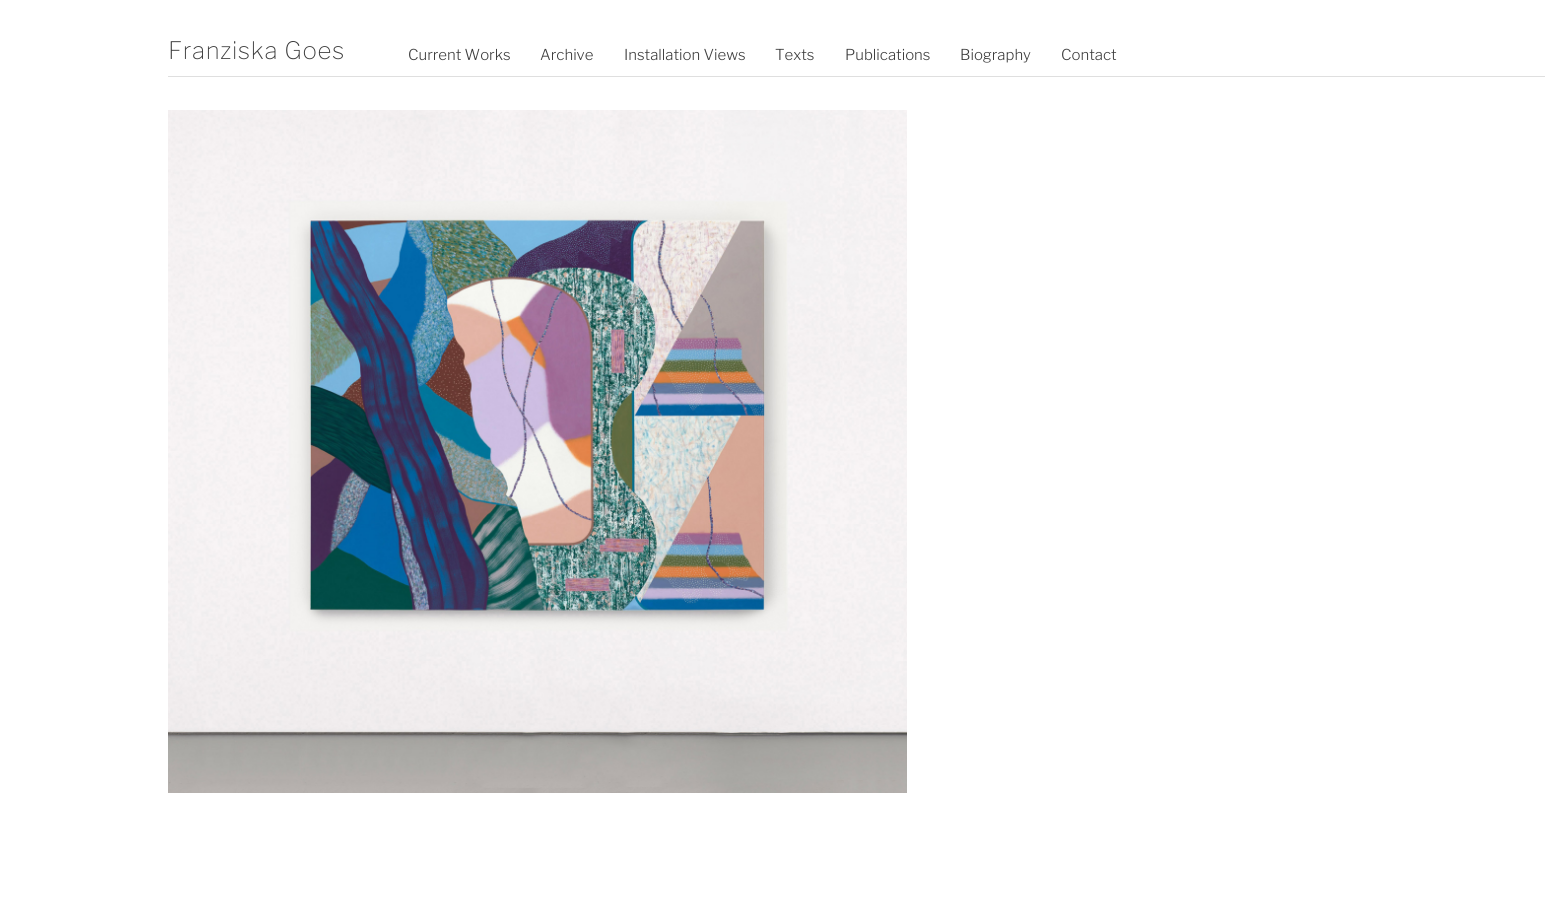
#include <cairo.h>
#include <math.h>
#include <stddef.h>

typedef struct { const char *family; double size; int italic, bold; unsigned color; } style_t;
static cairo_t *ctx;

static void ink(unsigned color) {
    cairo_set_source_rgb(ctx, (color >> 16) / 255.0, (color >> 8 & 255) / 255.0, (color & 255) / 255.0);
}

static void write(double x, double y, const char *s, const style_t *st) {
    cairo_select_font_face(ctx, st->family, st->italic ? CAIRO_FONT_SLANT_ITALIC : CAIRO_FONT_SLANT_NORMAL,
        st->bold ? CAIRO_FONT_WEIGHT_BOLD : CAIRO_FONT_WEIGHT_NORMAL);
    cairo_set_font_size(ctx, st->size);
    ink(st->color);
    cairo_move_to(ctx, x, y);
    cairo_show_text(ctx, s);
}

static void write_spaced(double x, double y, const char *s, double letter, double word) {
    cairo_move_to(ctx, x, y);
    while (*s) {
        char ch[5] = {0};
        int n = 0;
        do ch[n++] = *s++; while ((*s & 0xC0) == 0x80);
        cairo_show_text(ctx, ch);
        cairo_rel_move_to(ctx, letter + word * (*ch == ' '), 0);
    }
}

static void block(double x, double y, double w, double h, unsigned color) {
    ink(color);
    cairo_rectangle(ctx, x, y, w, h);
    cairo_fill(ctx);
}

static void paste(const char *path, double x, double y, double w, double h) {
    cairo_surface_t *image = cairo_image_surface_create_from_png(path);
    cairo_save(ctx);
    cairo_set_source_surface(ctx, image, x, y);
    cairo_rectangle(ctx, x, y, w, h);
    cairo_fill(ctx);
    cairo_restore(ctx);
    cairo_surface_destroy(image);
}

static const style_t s1 = {"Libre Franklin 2 Thin", 15, 0, 0, 0x3d3d3d};

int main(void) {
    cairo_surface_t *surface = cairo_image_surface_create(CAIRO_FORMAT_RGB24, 1545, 911);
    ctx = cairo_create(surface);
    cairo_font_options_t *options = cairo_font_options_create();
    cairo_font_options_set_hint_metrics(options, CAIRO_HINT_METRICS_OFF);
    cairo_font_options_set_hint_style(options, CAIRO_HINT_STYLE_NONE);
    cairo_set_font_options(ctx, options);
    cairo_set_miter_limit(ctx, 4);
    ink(0xffffff);
    cairo_paint(ctx);
    block(168, 76, 1377, 1, 0xdfdfdf);
    cairo_select_font_face(ctx, "Libre Franklin Thin", CAIRO_FONT_SLANT_NORMAL, CAIRO_FONT_WEIGHT_NORMAL);
    cairo_set_font_size(ctx, 24);
    ink(0x3d3d3d);
    write_spaced(168, 59, "Franziska Goes", 0.75, 0);
    write(408, 60, "Current Works", &s1);
    write(540, 60, "Archive", &s1);
    write(624, 60, "Installation Views", &s1);
    write(775, 60, "Texts", &s1);
    write(845, 60, "Publications", &s1);
    write(960, 60, "Biography", &s1);
    write(1061, 60, "Contact", &s1);
    paste("pic1.png", 168, 110, 739, 683);
    cairo_surface_write_to_png(surface, "screenshot.png");
    cairo_font_options_destroy(options);
    cairo_destroy(ctx);
    cairo_surface_destroy(surface);
    return 0;
}
